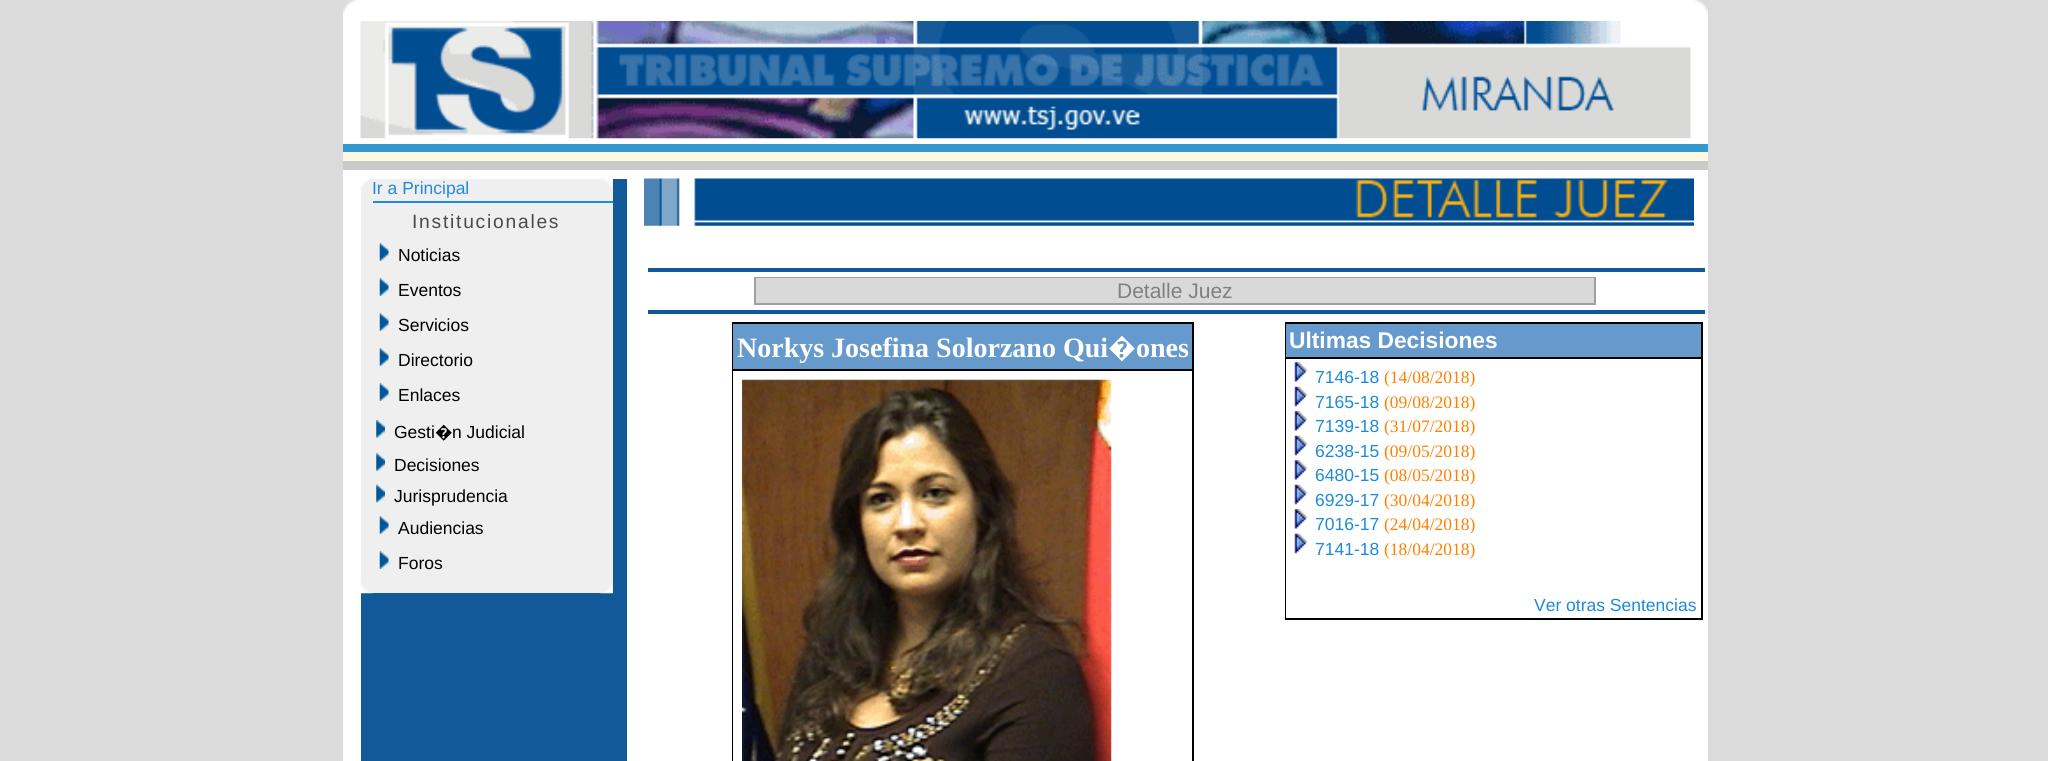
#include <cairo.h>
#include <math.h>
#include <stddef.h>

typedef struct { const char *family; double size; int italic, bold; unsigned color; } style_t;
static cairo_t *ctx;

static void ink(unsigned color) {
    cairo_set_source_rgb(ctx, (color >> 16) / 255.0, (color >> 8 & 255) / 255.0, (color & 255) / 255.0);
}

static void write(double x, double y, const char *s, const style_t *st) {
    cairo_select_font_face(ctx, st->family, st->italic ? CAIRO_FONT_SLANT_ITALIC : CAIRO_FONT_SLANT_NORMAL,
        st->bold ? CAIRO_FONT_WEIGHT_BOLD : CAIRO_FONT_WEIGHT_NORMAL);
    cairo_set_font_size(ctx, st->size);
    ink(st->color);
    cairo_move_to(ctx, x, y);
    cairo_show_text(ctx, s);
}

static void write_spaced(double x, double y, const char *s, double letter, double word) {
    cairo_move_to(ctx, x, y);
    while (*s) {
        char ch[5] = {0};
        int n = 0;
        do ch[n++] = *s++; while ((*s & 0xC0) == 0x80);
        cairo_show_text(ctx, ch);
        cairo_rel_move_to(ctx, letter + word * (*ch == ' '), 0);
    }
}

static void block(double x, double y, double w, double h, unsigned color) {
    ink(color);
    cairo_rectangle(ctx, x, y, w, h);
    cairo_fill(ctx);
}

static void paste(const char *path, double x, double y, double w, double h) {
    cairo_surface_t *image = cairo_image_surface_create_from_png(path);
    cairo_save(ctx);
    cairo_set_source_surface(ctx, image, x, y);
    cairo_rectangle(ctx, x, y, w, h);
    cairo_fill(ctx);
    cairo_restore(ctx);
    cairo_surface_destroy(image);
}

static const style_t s1 = {"Liberation Sans", 17.5, 0, 0, 0x1e8adb};
static const style_t s2 = {"Liberation Sans", 17.5, 0, 0, 0x000000};
static const style_t s3 = {"Noto Sans", 17.5, 0, 0, 0x000000};
static const style_t s4 = {"Liberation Sans", 21, 0, 0, 0x808080};
static const style_t s5 = {"Liberation Serif", 28, 0, 1, 0xffffff};
static const style_t s6 = {"Noto Sans", 28, 0, 1, 0xffffff};
static const style_t s7 = {"Liberation Sans", 22.75, 0, 1, 0xffffff};
static const style_t s8 = {"Liberation Serif", 17.5, 0, 0, 0xff8000};

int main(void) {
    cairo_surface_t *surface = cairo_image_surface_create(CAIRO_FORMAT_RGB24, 2048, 761);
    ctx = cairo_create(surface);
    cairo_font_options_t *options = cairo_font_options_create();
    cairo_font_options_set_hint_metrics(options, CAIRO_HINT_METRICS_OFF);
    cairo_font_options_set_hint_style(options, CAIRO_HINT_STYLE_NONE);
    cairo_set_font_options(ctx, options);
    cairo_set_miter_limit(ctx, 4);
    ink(0xdbdbdb);
    cairo_paint(ctx);
    block(343, 0, 1365, 761, 0xffffff);
    paste("pic1.png", 343, 0, 14, 14);
    paste("pic2.png", 1694, 0, 14, 14);
    paste("pic3.png", 360, 21, 1331, 118);
    block(343, 144, 1365, 8, 0x3399cc);
    block(343, 152, 1365, 9, 0xfcf9e2);
    block(343, 161, 1365, 9, 0xc9c9c9);
    block(361, 179, 266, 582, 0x125999);
    block(361, 179, 252, 414, 0xefefef);
    paste("pic4.png", 360, 178, 13, 13);
    paste("pic5.png", 600, 178, 13, 10);
    write(372, 194, "Ir a Principal", &s1);
    block(373, 201, 240, 2, 0x1e8adb);
    cairo_set_font_size(ctx, 19.25);
    ink(0x4a4a4a);
    write_spaced(412, 228, "Institucionales", 1.75, 0);
    paste("pic6.png", 379, 243, 10, 18);
    write(398, 261, "Noticias", &s2);
    paste("pic6.png", 379, 278, 10, 18);
    write(398, 296, "Eventos", &s2);
    paste("pic6.png", 379, 313, 10, 18);
    write(398, 331, "Servicios", &s2);
    paste("pic6.png", 379, 348, 10, 18);
    write(398, 366, "Directorio", &s2);
    paste("pic6.png", 379, 383, 10, 18);
    write(398, 401, "Enlaces", &s2);
    paste("pic7.png", 376, 420, 9, 18);
    write(394, 438, "Gesti", &s2);
    write(435, 438, "�", &s3);
    write(452, 438, "n Judicial", &s2);
    paste("pic8.png", 376, 453, 9, 18);
    write(394, 471, "Decisiones", &s2);
    paste("pic9.png", 376, 484, 9, 19);
    write(394, 502, "Jurisprudencia", &s2);
    paste("pic6.png", 379, 516, 10, 18);
    write(398, 534, "Audiencias", &s2);
    paste("pic6.png", 379, 551, 10, 18);
    write(398, 569, "Foros", &s2);
    paste("pic10.png", 360, 581, 13, 13);
    paste("pic11.png", 600, 583, 13, 11);
    paste("pic12.png", 644, 178, 1050, 48);
    block(648, 268, 1057, 4, 0x125999);
    block(754, 277, 842, 28, 0xa0a0a0);
    block(756, 278, 838, 25, 0xd9d9d9);
    write(1117, 298, "Detalle Juez", &s4);
    block(648, 310, 1057, 4, 0x125999);
    block(732, 322, 462, 439, 0x000000);
    block(733, 324, 459, 45, 0x6699cc);
    write(737, 357, "Norkys Josefina Solorzano Qui", &s5);
    write(1108, 357, "�", &s6);
    write(1136, 357, "ones", &s5);
    block(733, 371, 459, 390, 0xffffff);
    paste("pic13.png", 742, 379, 370, 382);
    block(1285, 322, 418, 298, 0x000000);
    block(1286, 324, 415, 33, 0x6699cc);
    write(1289, 348, "Ultimas Decisiones", &s7);
    block(1286, 359, 415, 259, 0xffffff);
    paste("pic14.png", 1294, 362, 14, 20);
    write(1315, 383, "7146-18", &s1);
    write(1384, 383, "(14/08/2018)", &s8);
    paste("pic15.png", 1294, 386, 14, 21);
    write(1315, 408, "7165-18", &s1);
    write(1384, 408, "(09/08/2018)", &s8);
    paste("pic14.png", 1294, 411, 14, 20);
    write(1315, 432, "7139-18", &s1);
    write(1384, 432, "(31/07/2018)", &s8);
    paste("pic15.png", 1294, 435, 14, 21);
    write(1315, 457, "6238-15", &s1);
    write(1384, 457, "(09/05/2018)", &s8);
    paste("pic14.png", 1294, 460, 14, 20);
    write(1315, 481, "6480-15", &s1);
    write(1384, 481, "(08/05/2018)", &s8);
    paste("pic15.png", 1294, 484, 14, 21);
    write(1315, 506, "6929-17", &s1);
    write(1384, 506, "(30/04/2018)", &s8);
    paste("pic14.png", 1294, 509, 14, 20);
    write(1315, 530, "7016-17", &s1);
    write(1384, 530, "(24/04/2018)", &s8);
    paste("pic15.png", 1294, 533, 14, 21);
    write(1315, 555, "7141-18", &s1);
    write(1384, 555, "(18/04/2018)", &s8);
    write(1534, 611, "Ver otras Sentencias", &s1);
    cairo_surface_write_to_png(surface, "screenshot.png");
    cairo_font_options_destroy(options);
    cairo_destroy(ctx);
    cairo_surface_destroy(surface);
    return 0;
}
